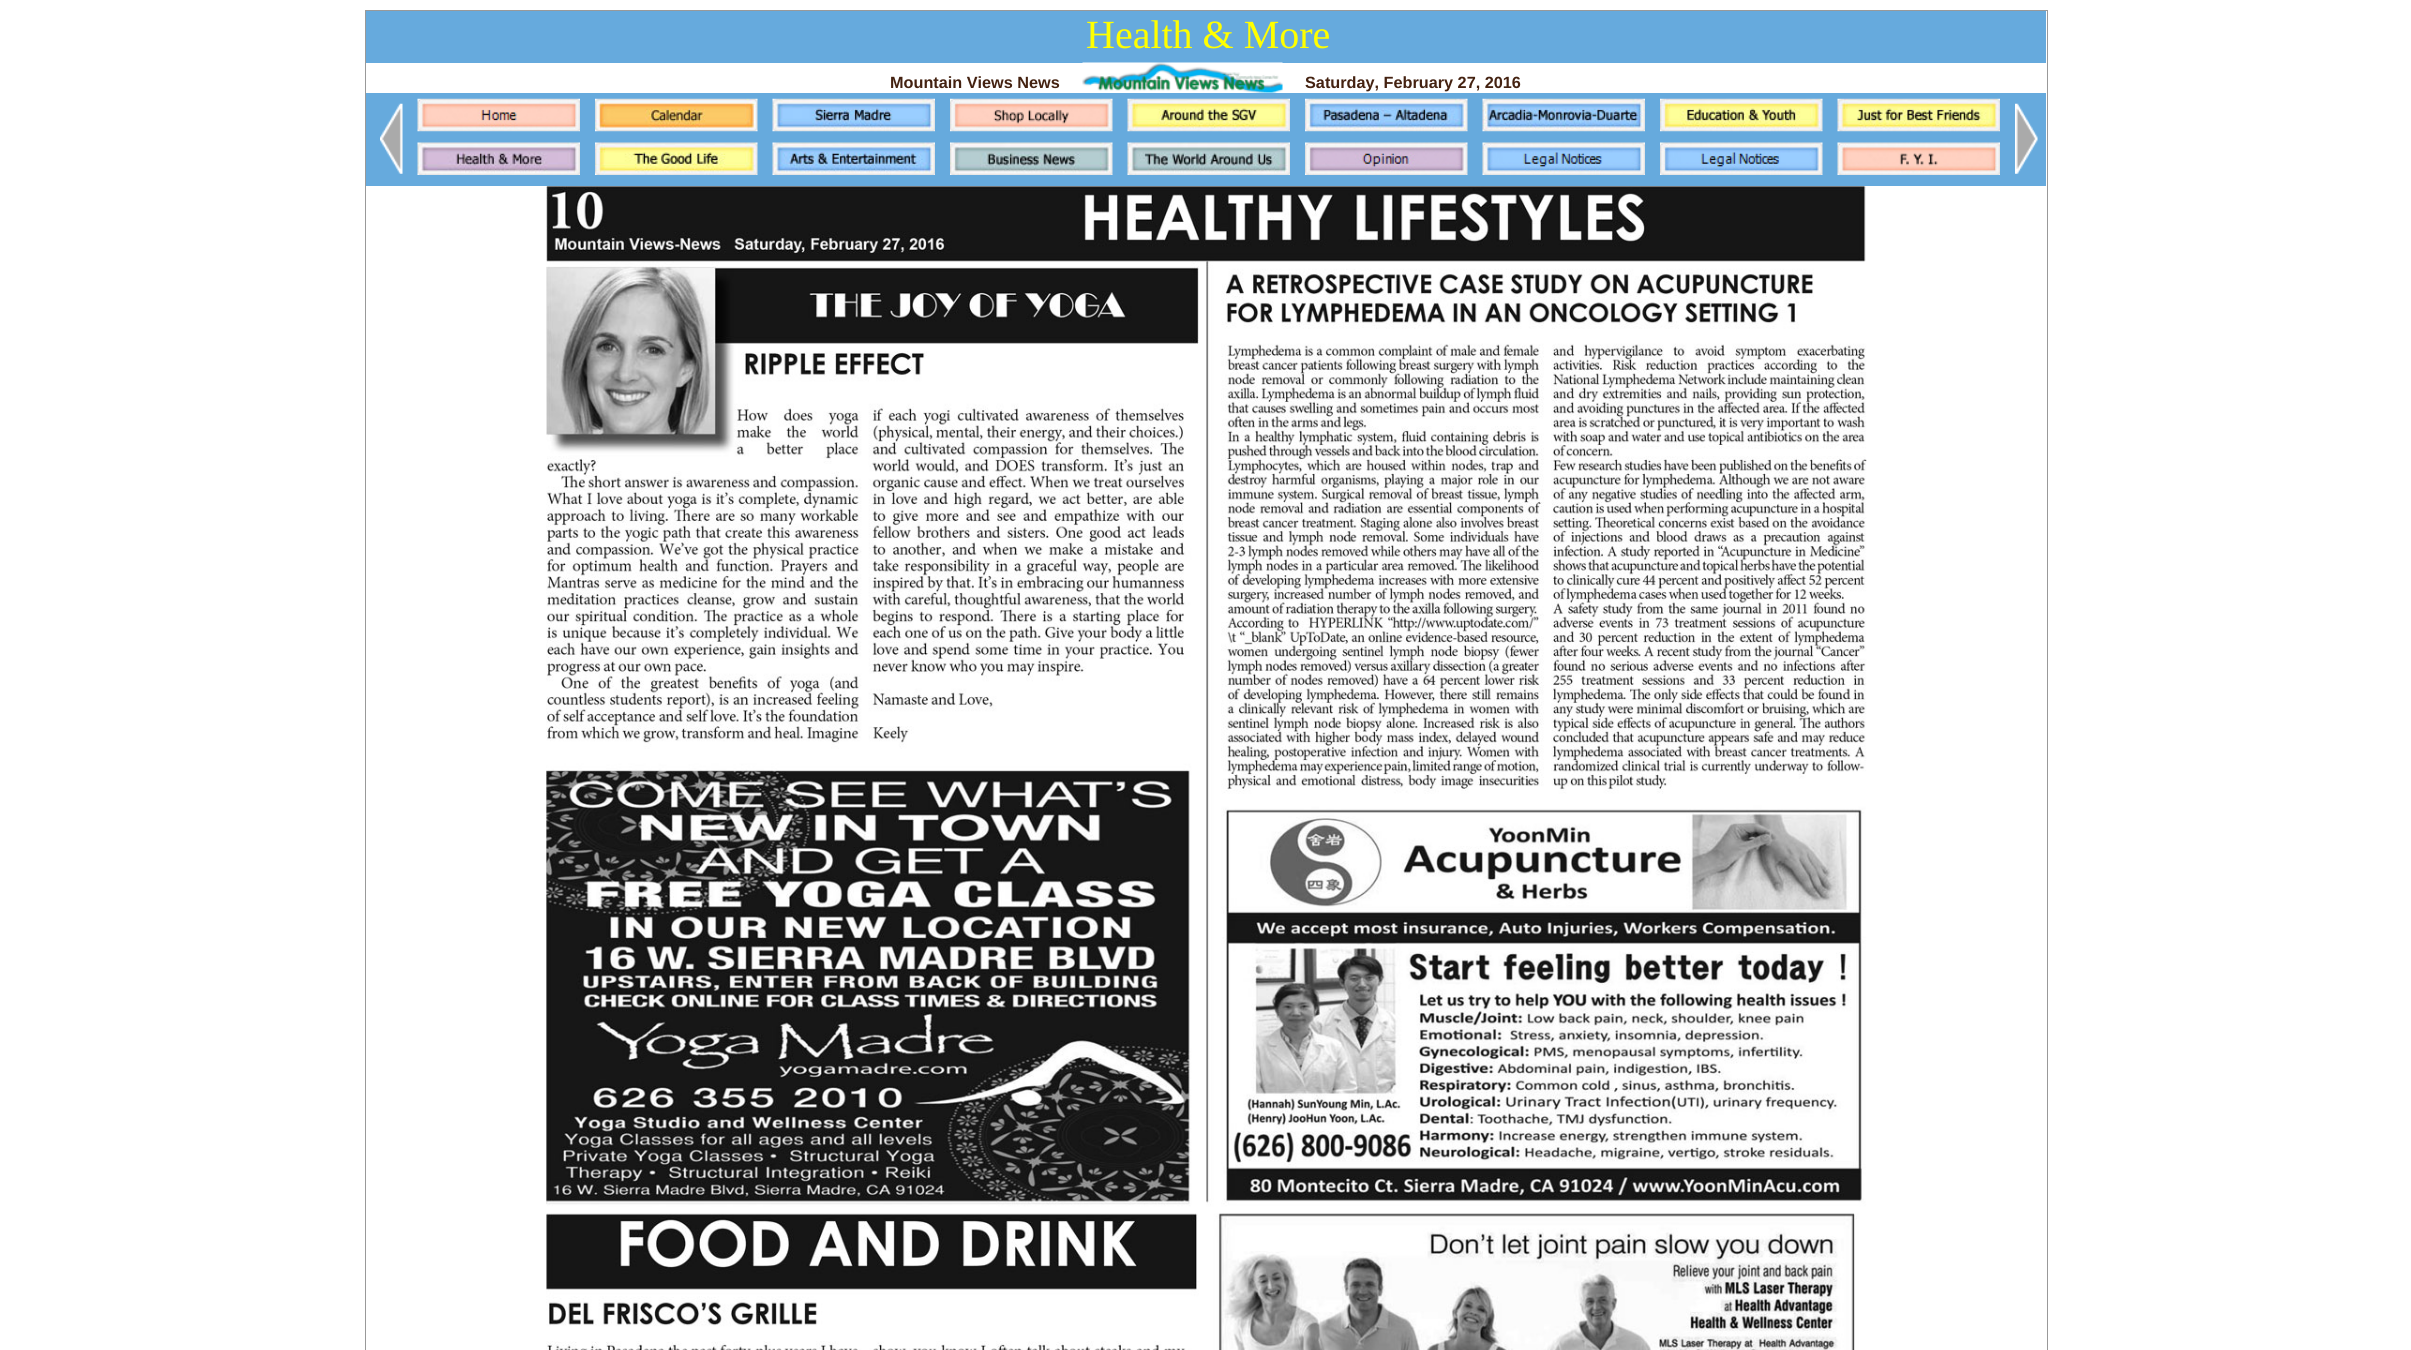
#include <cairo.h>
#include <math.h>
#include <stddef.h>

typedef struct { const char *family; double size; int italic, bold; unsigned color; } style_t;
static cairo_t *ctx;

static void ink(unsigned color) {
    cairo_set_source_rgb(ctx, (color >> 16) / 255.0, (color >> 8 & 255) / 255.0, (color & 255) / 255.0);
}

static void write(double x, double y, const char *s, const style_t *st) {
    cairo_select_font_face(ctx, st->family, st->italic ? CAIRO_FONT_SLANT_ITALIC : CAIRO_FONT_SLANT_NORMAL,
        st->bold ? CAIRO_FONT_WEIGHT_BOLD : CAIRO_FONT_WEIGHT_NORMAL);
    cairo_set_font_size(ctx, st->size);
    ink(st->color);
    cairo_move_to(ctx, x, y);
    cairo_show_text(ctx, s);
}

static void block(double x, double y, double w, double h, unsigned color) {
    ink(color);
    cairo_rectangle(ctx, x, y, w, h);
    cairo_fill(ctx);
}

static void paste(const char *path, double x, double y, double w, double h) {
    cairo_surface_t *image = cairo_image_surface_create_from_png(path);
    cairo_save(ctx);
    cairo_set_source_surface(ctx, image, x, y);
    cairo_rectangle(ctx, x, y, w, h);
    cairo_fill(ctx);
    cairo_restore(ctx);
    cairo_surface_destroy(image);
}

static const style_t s1 = {"Liberation Serif", 40, 0, 0, 0xffff00};
static const style_t s2 = {"Liberation Sans", 16.25, 0, 1, 0x442211};

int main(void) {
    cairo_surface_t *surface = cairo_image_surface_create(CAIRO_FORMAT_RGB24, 2411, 1350);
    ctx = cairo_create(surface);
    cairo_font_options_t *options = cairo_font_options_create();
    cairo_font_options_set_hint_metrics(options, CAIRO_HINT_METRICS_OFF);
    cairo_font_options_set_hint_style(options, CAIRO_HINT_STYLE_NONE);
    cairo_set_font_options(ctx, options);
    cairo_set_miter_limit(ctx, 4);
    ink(0xffffff);
    cairo_paint(ctx);
    cairo_rectangle(ctx, 365.5, 10.5, 1682, 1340);
    ink(0x999999);
    cairo_set_line_width(ctx, 1);
    cairo_stroke(ctx);
    block(366, 11, 1680, 52, 0x66aadd);
    write(1086, 48, "Health & More", &s1);
    write(890, 88, "Mountain Views News", &s2);
    paste("pic1.png", 1082, 62, 201, 31);
    write(1305, 88, "Saturday, February 27, 2016", &s2);
    block(366, 93, 1680, 93, 0x66aadd);
    paste("pic2.png", 380, 103, 23, 71);
    paste("pic3.png", 417, 98, 163, 34);
    paste("pic4.png", 595, 98, 163, 34);
    paste("pic5.png", 772, 98, 163, 34);
    paste("pic6.png", 950, 98, 163, 34);
    paste("pic7.png", 1127, 98, 163, 34);
    paste("pic8.png", 1305, 98, 163, 34);
    paste("pic9.png", 1482, 98, 163, 34);
    paste("pic10.png", 1660, 98, 163, 34);
    paste("pic11.png", 1837, 98, 163, 34);
    paste("pic12.png", 2015, 103, 23, 71);
    paste("pic13.png", 417, 142, 163, 33);
    paste("pic14.png", 595, 142, 163, 33);
    paste("pic15.png", 772, 142, 163, 33);
    paste("pic16.png", 950, 142, 163, 33);
    paste("pic17.png", 1127, 142, 163, 33);
    paste("pic18.png", 1305, 142, 163, 33);
    paste("pic19.png", 1482, 142, 163, 33);
    paste("pic20.png", 1660, 142, 163, 33);
    paste("pic21.png", 1837, 142, 163, 33);
    paste("pic22.png", 546, 186, 1321, 1164);
    cairo_surface_write_to_png(surface, "screenshot.png");
    cairo_font_options_destroy(options);
    cairo_destroy(ctx);
    cairo_surface_destroy(surface);
    return 0;
}
